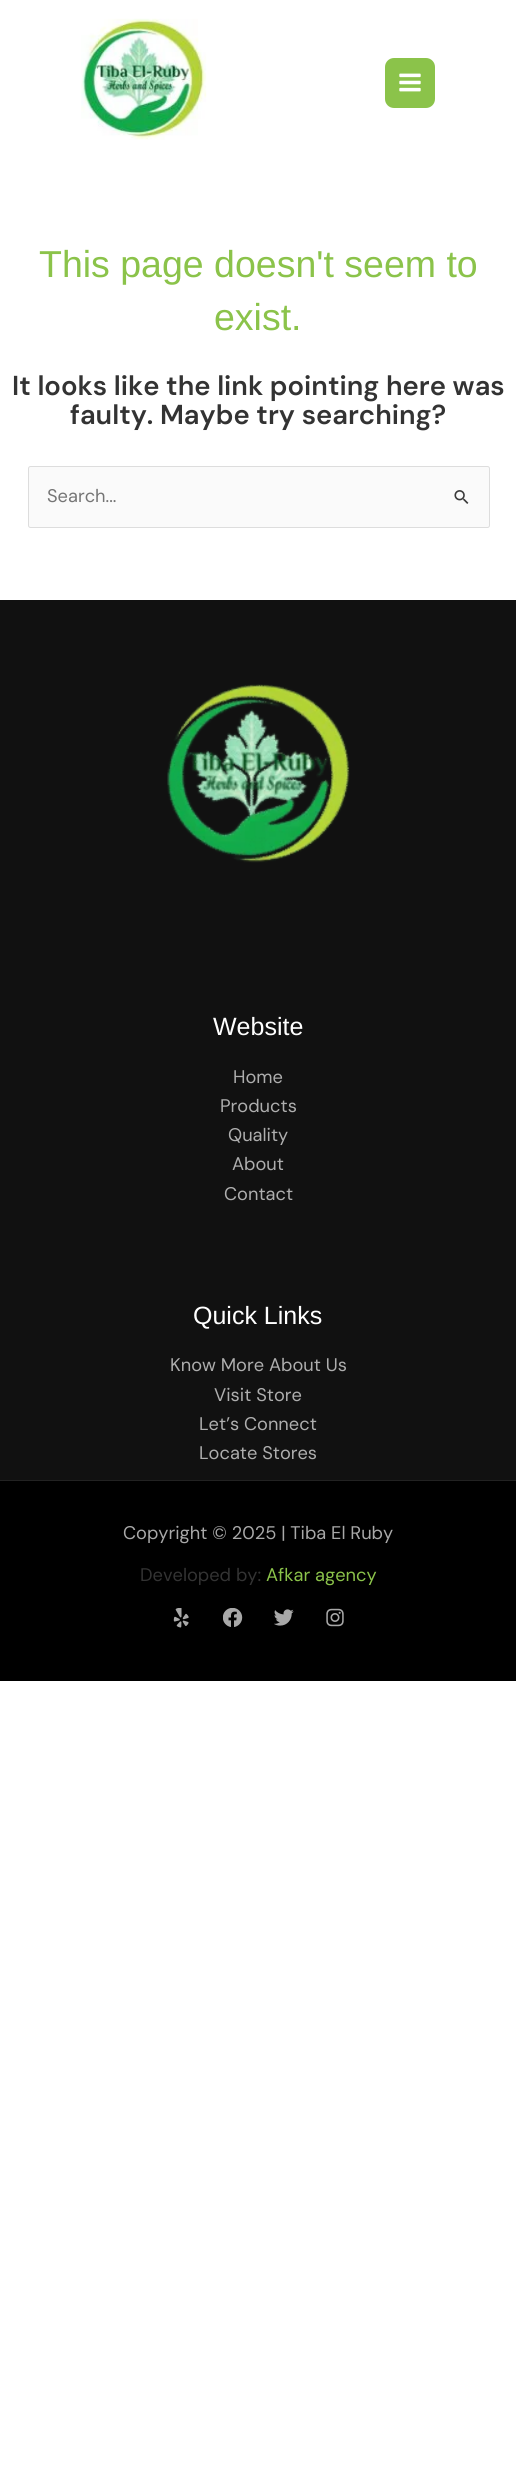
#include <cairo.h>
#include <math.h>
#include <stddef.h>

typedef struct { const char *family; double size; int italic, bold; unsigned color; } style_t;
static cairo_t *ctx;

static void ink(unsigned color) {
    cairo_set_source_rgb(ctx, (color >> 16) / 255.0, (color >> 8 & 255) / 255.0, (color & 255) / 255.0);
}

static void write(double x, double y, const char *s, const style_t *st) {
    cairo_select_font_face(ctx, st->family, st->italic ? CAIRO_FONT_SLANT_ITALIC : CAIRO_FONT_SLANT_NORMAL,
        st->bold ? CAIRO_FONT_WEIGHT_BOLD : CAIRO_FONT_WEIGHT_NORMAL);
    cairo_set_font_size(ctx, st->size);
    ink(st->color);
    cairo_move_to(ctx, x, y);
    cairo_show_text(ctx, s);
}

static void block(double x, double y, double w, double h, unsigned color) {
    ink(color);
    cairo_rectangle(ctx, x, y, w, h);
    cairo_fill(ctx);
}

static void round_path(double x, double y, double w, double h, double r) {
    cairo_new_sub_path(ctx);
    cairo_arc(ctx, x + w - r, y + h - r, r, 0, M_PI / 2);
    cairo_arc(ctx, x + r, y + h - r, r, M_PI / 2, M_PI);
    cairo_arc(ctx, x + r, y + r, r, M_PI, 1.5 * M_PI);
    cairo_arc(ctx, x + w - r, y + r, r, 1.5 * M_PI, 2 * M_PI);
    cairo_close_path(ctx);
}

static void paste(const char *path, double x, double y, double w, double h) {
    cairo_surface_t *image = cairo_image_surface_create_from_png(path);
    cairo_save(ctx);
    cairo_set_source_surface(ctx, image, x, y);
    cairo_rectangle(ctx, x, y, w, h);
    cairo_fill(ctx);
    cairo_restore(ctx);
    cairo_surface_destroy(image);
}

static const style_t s1 = {"Liberation Sans", 37.5, 0, 0, 0x8bc34a};
static const style_t s2 = {"DM Sans SemiBold", 27.4, 0, 0, 0x333333};
static const style_t s3 = {"DM Sans", 18.25, 0, 0, 0x757575};
static const style_t s4 = {"Liberation Sans", 25, 0, 0, 0xffffff};
static const style_t s5 = {"DM Sans", 18.25, 0, 0, 0xaeaeae};
static const style_t s6 = {"DM Sans", 18.25, 0, 0, 0xa8a8a8};
static const style_t s7 = {"DM Sans", 18.25, 0, 0, 0x333333};
static const style_t s8 = {"DM Sans", 18.25, 0, 0, 0x8bc34a};

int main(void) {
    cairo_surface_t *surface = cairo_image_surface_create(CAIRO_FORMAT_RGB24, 516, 2482);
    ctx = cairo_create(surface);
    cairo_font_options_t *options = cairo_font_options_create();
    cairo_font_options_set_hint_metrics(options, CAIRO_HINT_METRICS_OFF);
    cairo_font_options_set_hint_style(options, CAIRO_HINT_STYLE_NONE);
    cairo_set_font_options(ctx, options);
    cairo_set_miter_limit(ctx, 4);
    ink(0xffffff);
    cairo_paint(ctx);
    paste("pic1.png", 81, 18, 126, 122);
    ink(0x8bc34a);
    round_path(385, 58, 50, 50, 9);
    cairo_fill(ctx);
    paste("pic2.png", 399, 73, 22, 19);
    write(39, 277, "This page doesn't seem to", &s1);
    write(214, 330, "exist.", &s1);
    write(12, 395, "It looks like the link pointing here was", &s2);
    write(70, 424, "faulty. Maybe try searching?", &s2);
    ink(0xfafafa);
    round_path(28.5, 466.5, 461, 61, 2);
    cairo_fill_preserve(ctx);
    ink(0xdddddd);
    cairo_set_line_width(ctx, 1);
    cairo_stroke(ctx);
    write(47, 502, "Search...", &s3);
    paste("pic3.png", 454, 490, 15, 14);
    block(0, 600, 516, 880, 0x111111);
    paste("pic4.png", 167, 684, 183, 179);
    write(213, 1035, "Website", &s4);
    write(233, 1083, "Home", &s5);
    write(220, 1112, "Products", &s5);
    write(228, 1141, "Quality", &s5);
    write(232, 1170, "About", &s5);
    write(224, 1200, "Contact", &s5);
    write(193, 1324, "Quick Links", &s4);
    write(170, 1371, "Know More About Us", &s5);
    write(214, 1401, "Visit Store", &s5);
    write(199, 1430, "Let’s Connect", &s5);
    write(199, 1459, "Locate Stores", &s5);
    block(0, 1481, 516, 200, 0x000000);
    block(0, 1480, 516, 1, 0x222222);
    write(123, 1539, "Copyright © 2025 | Tiba El Ruby", &s6);
    write(140, 1581, "Developed by:", &s7);
    write(266, 1581, "Afkar agency", &s8);
    paste("pic5.png", 173, 1608, 16, 20);
    paste("pic6.png", 223, 1608, 20, 19);
    paste("pic7.png", 274, 1609, 20, 17);
    paste("pic8.png", 326, 1608, 18, 19);
    cairo_surface_write_to_png(surface, "screenshot.png");
    cairo_font_options_destroy(options);
    cairo_destroy(ctx);
    cairo_surface_destroy(surface);
    return 0;
}
